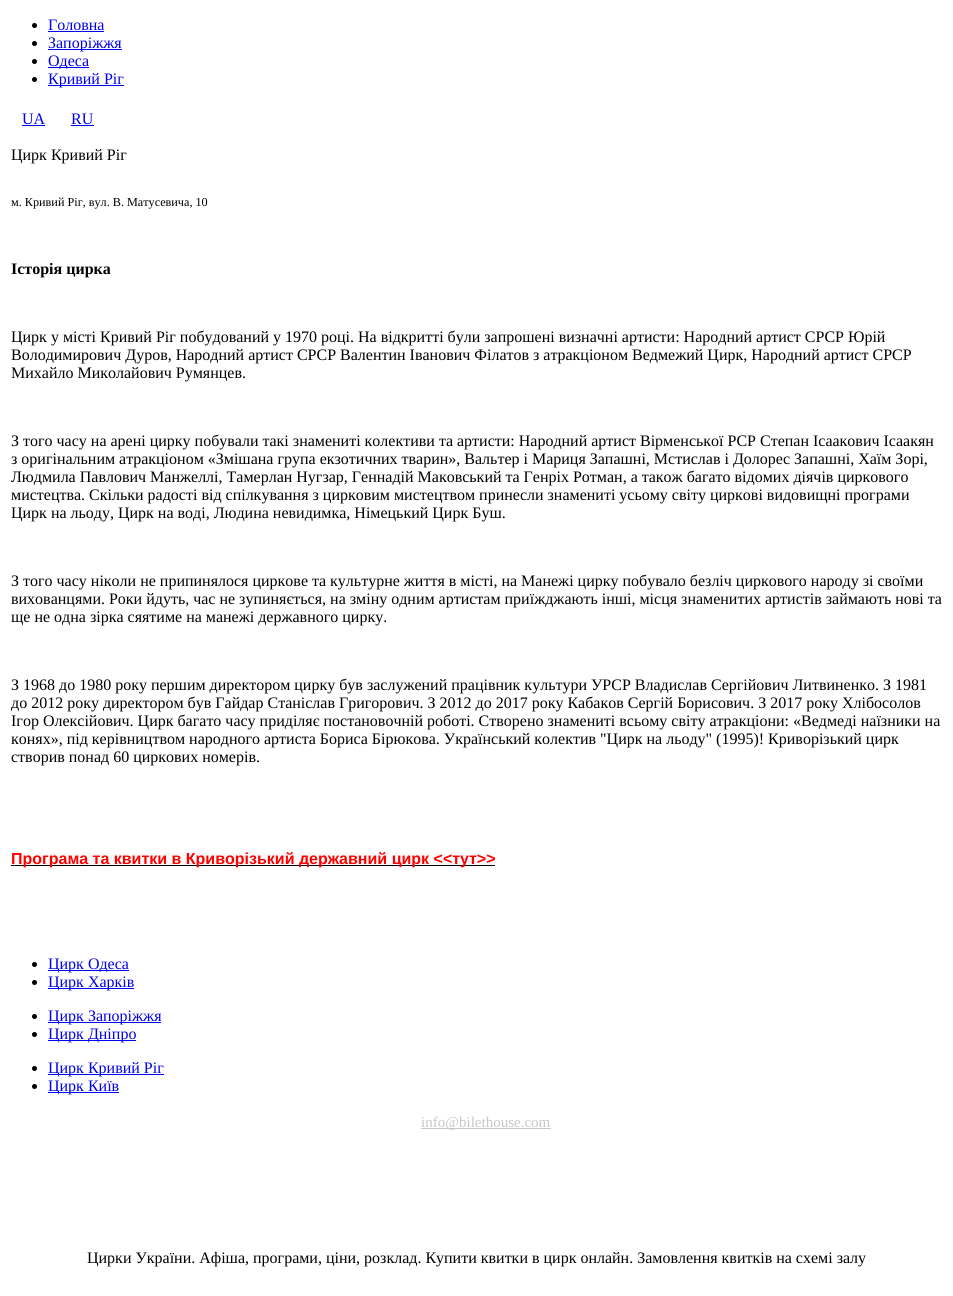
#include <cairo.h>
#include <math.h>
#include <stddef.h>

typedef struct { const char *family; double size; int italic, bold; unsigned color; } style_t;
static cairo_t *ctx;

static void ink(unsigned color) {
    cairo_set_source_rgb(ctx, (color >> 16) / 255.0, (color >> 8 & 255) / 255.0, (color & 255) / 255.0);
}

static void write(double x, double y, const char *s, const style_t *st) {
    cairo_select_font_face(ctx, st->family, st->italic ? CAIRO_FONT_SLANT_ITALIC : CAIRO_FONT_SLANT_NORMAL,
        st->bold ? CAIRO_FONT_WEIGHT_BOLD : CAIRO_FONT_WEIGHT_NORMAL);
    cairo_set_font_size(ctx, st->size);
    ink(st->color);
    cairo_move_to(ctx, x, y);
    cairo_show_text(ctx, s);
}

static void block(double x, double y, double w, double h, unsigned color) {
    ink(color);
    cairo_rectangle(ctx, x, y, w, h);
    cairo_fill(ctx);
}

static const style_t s1 = {"Liberation Serif", 16, 0, 0, 0x0000ee};
static const style_t s2 = {"Liberation Serif", 16, 0, 0, 0x000000};
static const style_t s3 = {"Liberation Serif", 12.2, 0, 0, 0x000000};
static const style_t s4 = {"Liberation Serif", 16, 0, 1, 0x000000};
static const style_t s5 = {"Liberation Sans", 16, 0, 1, 0xff0000};
static const style_t s6 = {"Liberation Serif", 15, 0, 0, 0xc7c7c7};

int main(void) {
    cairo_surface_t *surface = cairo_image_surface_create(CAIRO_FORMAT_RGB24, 953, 1296);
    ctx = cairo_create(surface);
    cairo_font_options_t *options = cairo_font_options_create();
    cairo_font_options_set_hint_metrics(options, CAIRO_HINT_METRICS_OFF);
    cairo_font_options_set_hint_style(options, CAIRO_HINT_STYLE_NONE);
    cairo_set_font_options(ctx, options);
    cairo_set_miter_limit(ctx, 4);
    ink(0xffffff);
    cairo_paint(ctx);
    ink(0x000000);
    cairo_arc(ctx, 34.5, 25.5, 2.5, 0, 2 * M_PI);
    cairo_fill(ctx);
    write(48, 30, "Головна", &s1);
    block(48, 31, 56, 1, 0x0000ee);
    ink(0x000000);
    cairo_new_path(ctx);
    cairo_arc(ctx, 34.5, 43.5, 2.5, 0, 2 * M_PI);
    cairo_fill(ctx);
    block(48, 49, 74, 1, 0x0000ee);
    write(48, 48, "Запоріжжя", &s1);
    ink(0x000000);
    cairo_new_path(ctx);
    cairo_arc(ctx, 34.5, 61.5, 2.5, 0, 2 * M_PI);
    cairo_fill(ctx);
    block(48, 67, 41, 1, 0x0000ee);
    write(48, 66, "Одеса", &s1);
    ink(0x000000);
    cairo_new_path(ctx);
    cairo_arc(ctx, 34.5, 79.5, 2.5, 0, 2 * M_PI);
    cairo_fill(ctx);
    block(48, 85, 76, 1, 0x0000ee);
    write(48, 84, "Кривий Ріг", &s1);
    write(22, 124, "UA", &s1);
    block(22, 125, 23, 1, 0x0000ee);
    write(71, 124, "RU", &s1);
    block(71, 125, 23, 1, 0x0000ee);
    write(11, 160, "Цирк Кривий Ріг", &s2);
    write(11, 206, "м. Кривий Ріг, вул. В. Матусевича, 10", &s3);
    write(11, 274, "Історія цирка", &s4);
    write(11, 342, "Цирк у місті Кривий Ріг побудований у 1970 році. На відкритті були запрошені визначні артисти: Народний артист СРСР Юрій", &s2);
    write(11, 360, "Володимирович Дуров, Народний артист СРСР Валентин Іванович Філатов з атракціоном Ведмежий Цирк, Народний артист СРСР", &s2);
    write(11, 378, "Михайло Миколайович Румянцев.", &s2);
    write(11, 446, "З того часу на арені цирку побували такі знамениті колективи та артисти: Народний артист Вірменської РСР Степан Ісаакович Ісаакян", &s2);
    write(11, 464, "з оригінальним атракціоном «Змішана група екзотичних тварин», Вальтер і Мариця Запашні, Мстислав і Долорес Запашні, Хаїм Зорі,", &s2);
    write(11, 482, "Людмила Павлович Манжеллі, Тамерлан Нугзар, Геннадій Маковський та Генріх Ротман, а також багато відомих діячів циркового", &s2);
    write(11, 500, "мистецтва. Скільки радості від спілкування з цирковим мистецтвом принесли знамениті усьому світу циркові видовищні програми", &s2);
    write(11, 518, "Цирк на льоду, Цирк на воді, Людина невидимка, Німецький Цирк Буш.", &s2);
    write(11, 586, "З того часу ніколи не припинялося циркове та культурне життя в місті, на Манежі цирку побувало безліч циркового народу зі своїми", &s2);
    write(11, 604, "вихованцями. Роки йдуть, час не зупиняється, на зміну одним артистам приїжджають інші, місця знаменитих артистів займають нові та", &s2);
    write(11, 622, "ще не одна зірка сяятиме на манежі державного цирку.", &s2);
    write(11, 690, "З 1968 до 1980 року першим директором цирку був заслужений працівник культури УРСР Владислав Сергійович Литвиненко. З 1981", &s2);
    write(11, 708, "до 2012 року директором був Гайдар Станіслав Григорович. З 2012 до 2017 року Кабаков Сергій Борисович. З 2017 року Хлібосолов", &s2);
    write(11, 726, "Ігор Олексійович. Цирк багато часу приділяє постановочній роботі. Створено знамениті всьому світу атракціони: «Ведмеді наїзники на", &s2);
    write(11, 744, "конях», під керівництвом народного артиста Бориса Бірюкова. Український колектив \"Цирк на льоду\" (1995)! Криворізький цирк", &s2);
    write(11, 762, "створив понад 60 циркових номерів.", &s2);
    block(11, 853, 484, 14, 0xfbfbfb);
    block(11, 865, 484, 1, 0x000000);
    write(11, 864, "Програма та квитки в Криворізький державний цирк <<тут>>", &s5);
    ink(0x000000);
    cairo_new_path(ctx);
    cairo_arc(ctx, 34.5, 964.5, 2.5, 0, 2 * M_PI);
    cairo_fill(ctx);
    block(48, 970, 81, 1, 0x0000ee);
    write(48, 969, "Цирк Одеса", &s1);
    ink(0x000000);
    cairo_new_path(ctx);
    cairo_arc(ctx, 34.5, 982.5, 2.5, 0, 2 * M_PI);
    cairo_fill(ctx);
    block(48, 988, 86, 1, 0x0000ee);
    write(48, 987, "Цирк Харків", &s1);
    ink(0x000000);
    cairo_new_path(ctx);
    cairo_arc(ctx, 34.5, 1016.5, 2.5, 0, 2 * M_PI);
    cairo_fill(ctx);
    block(48, 1022, 113, 1, 0x0000ee);
    write(48, 1021, "Цирк Запоріжжя", &s1);
    ink(0x000000);
    cairo_new_path(ctx);
    cairo_arc(ctx, 34.5, 1034.5, 2.5, 0, 2 * M_PI);
    cairo_fill(ctx);
    block(48, 1040, 88, 1, 0x0000ee);
    write(48, 1039, "Цирк Дніпро", &s1);
    ink(0x000000);
    cairo_new_path(ctx);
    cairo_arc(ctx, 34.5, 1068.5, 2.5, 0, 2 * M_PI);
    cairo_fill(ctx);
    block(48, 1074, 116, 1, 0x0000ee);
    write(48, 1073, "Цирк Кривий Ріг", &s1);
    ink(0x000000);
    cairo_new_path(ctx);
    cairo_arc(ctx, 34.5, 1086.5, 2.5, 0, 2 * M_PI);
    cairo_fill(ctx);
    block(48, 1092, 71, 1, 0x0000ee);
    write(48, 1091, "Цирк Київ", &s1);
    block(421, 1128, 130, 1, 0xc7c7c7);
    write(421, 1127, "info@bilethouse.com", &s6);
    write(87, 1263, "Цирки України. Афіша, програми, ціни, розклад. Купити квитки в цирк онлайн. Замовлення квитків на схемі залу", &s2);
    cairo_surface_write_to_png(surface, "screenshot.png");
    cairo_font_options_destroy(options);
    cairo_destroy(ctx);
    cairo_surface_destroy(surface);
    return 0;
}
